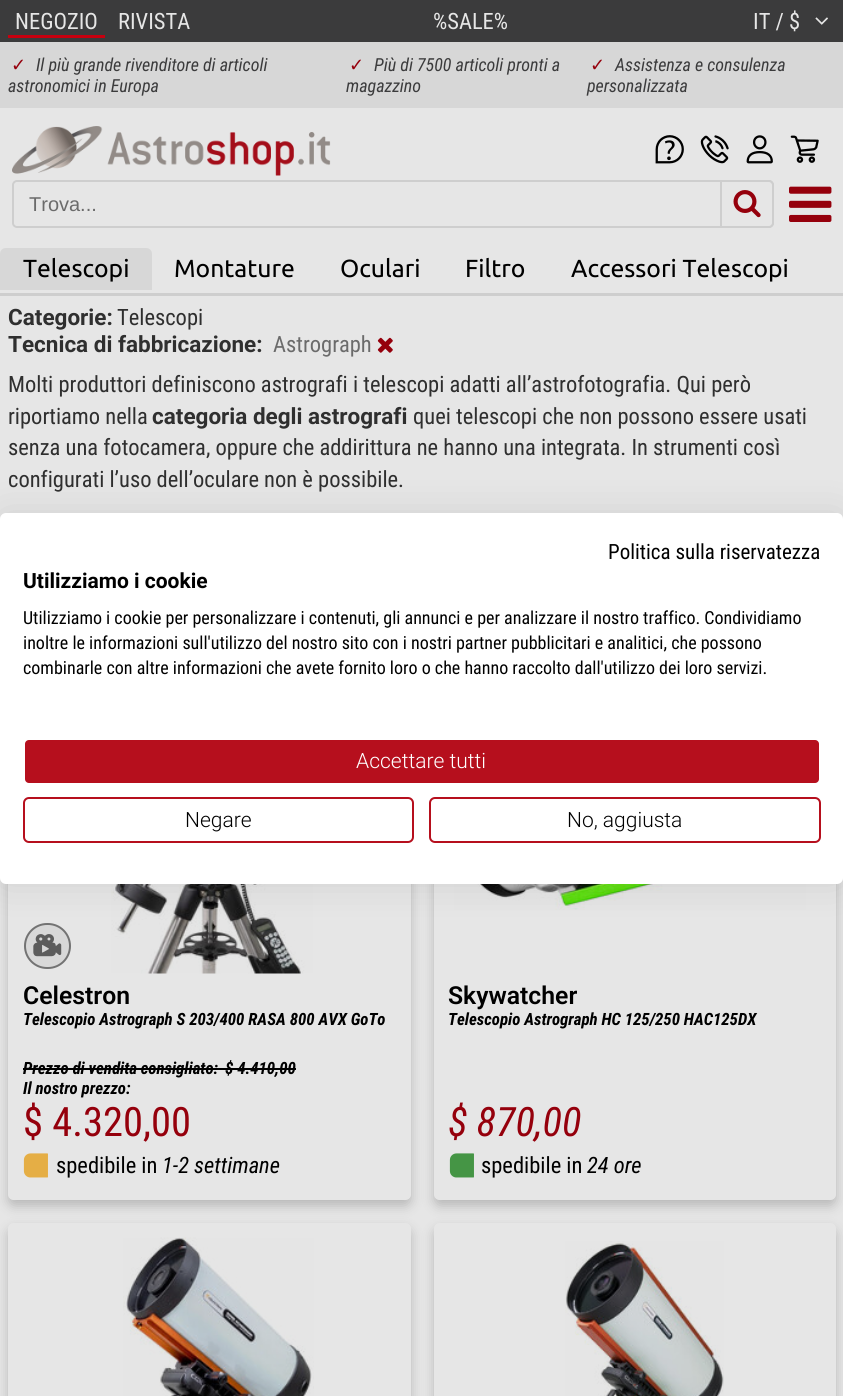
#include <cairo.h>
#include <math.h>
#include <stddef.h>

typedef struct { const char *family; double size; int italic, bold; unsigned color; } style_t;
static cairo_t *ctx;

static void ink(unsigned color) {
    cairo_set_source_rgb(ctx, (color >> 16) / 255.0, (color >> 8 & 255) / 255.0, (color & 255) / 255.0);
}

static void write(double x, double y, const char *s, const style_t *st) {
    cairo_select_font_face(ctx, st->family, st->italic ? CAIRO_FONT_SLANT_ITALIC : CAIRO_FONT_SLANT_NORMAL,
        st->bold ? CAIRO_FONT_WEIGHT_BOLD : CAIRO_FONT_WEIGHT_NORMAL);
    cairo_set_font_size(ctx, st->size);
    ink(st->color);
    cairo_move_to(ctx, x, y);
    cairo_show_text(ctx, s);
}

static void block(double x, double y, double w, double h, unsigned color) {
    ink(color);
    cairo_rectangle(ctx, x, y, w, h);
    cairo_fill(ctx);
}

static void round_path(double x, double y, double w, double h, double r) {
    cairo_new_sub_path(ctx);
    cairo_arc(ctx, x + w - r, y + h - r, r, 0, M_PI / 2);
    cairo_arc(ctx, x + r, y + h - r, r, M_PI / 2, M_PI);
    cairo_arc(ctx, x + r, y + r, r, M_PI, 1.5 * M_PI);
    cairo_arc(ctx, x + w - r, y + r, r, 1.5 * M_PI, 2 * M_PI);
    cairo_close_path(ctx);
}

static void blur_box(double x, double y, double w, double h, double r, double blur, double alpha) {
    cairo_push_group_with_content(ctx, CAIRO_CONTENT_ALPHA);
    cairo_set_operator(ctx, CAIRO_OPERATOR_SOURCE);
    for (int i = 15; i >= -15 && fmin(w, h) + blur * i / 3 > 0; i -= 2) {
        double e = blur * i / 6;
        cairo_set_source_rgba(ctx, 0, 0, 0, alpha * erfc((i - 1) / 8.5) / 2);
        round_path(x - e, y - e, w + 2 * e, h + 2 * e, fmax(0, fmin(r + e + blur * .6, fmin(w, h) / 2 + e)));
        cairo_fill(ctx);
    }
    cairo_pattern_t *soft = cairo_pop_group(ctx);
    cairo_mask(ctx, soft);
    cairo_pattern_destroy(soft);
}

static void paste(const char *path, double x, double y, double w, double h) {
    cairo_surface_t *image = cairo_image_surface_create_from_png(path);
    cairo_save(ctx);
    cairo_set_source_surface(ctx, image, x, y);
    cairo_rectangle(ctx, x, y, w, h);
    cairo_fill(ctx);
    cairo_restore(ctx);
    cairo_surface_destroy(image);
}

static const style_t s1 = {"Roboto Condensed", 22.5, 0, 0, 0xe6e6e6};
static const style_t s2 = {"DejaVu Sans", 18, 0, 0, 0x95000c};
static const style_t s3 = {"Roboto Condensed", 18, 1, 0, 0x3b3b3c};
static const style_t s4 = {"Liberation Sans", 20, 0, 0, 0x6b6b6b};
static const style_t s5 = {"Ubuntu", 24.75, 0, 0, 0x000000};
static const style_t s6 = {"Roboto", 22.5, 0, 1, 0x2f2f2f};
static const style_t s7 = {"Roboto Condensed", 22.5, 0, 0, 0x2f2f2f};
static const style_t s8 = {"Roboto Condensed", 22.5, 0, 0, 0x6b6b6b};
static const style_t s9 = {"Roboto SemiBold", 24.75, 0, 0, 0x000000};
static const style_t s10 = {"Roboto Condensed", 16.9, 1, 1, 0x000000};
static const style_t s11 = {"Roboto Condensed", 40.5, 0, 0, 0x95000c};
static const style_t s12 = {"Roboto Condensed", 22.5, 0, 0, 0x000000};
static const style_t s13 = {"Roboto Condensed", 22.5, 1, 0, 0x000000};
static const style_t s14 = {"Roboto Condensed", 40.5, 1, 0, 0x95000c};
static const style_t s15 = {"Roboto Condensed", 21, 0, 0, 0x000000};
static const style_t s16 = {"Roboto", 21, 0, 1, 0x000000};
static const style_t s17 = {"Roboto Condensed", 18, 0, 0, 0x000000};
static const style_t s18 = {"Roboto Light", 21, 0, 0, 0xffffff};
static const style_t s19 = {"Roboto Light", 21, 0, 0, 0x000000};

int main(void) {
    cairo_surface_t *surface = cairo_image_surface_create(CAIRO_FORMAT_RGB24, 843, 1396);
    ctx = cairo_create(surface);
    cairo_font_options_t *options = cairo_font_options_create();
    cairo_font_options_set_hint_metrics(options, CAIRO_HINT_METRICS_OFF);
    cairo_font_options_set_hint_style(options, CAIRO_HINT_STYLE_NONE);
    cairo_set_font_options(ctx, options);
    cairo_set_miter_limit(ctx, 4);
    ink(0xe6e6e6);
    cairo_paint(ctx);
    block(0, 0, 843, 42, 0x3b3b3c);
    write(15, 29, "NEGOZIO", &s1);
    block(8, 35, 97, 3, 0xc7000f);
    write(118, 29, "RIVISTA", &s1);
    write(433, 29, "%SALE%", &s1);
    write(753, 29, "IT / $", &s1);
    paste("pic1.png", 815, 17, 13, 8);
    block(0, 42, 843, 66, 0xd7d7d7);
    write(11, 71, "✓", &s2);
    write(36, 71, "Il più grande rivenditore di articoli", &s3);
    write(8, 92, "astronomici in Europa", &s3);
    write(349, 71, "✓", &s2);
    write(374, 71, "Più di 7500 articoli pronti a", &s3);
    write(346, 92, "magazzino", &s3);
    write(590, 71, "✓", &s2);
    write(615, 71, "Assistenza e consulenza", &s3);
    write(587, 92, "personalizzata", &s3);
    paste("pic2.png", 12, 126, 319, 50);
    paste("pic3.png", 655, 135, 29, 29);
    paste("pic4.png", 700, 135, 29, 29);
    paste("pic5.png", 746, 135, 27, 29);
    paste("pic6.png", 790, 135, 29, 28);
    round_path(13, 181, 760, 46, 4);
    ink(0xcecece);
    cairo_stroke(ctx);
    write(29, 211, "Trova...", &s4);
    ink(0xe6e6e6);
    cairo_new_path(ctx);
    cairo_move_to(ctx, 721, 181);
    cairo_line_to(ctx, 769, 181);
    cairo_curve_to(ctx, 771, 181, 773, 183, 773, 185);
    cairo_line_to(ctx, 773, 223);
    cairo_curve_to(ctx, 773, 225, 771, 227, 769, 227);
    cairo_line_to(ctx, 721, 227);
    cairo_close_path(ctx);
    cairo_fill_preserve(ctx);
    ink(0xcecece);
    cairo_stroke(ctx);
    paste("pic7.png", 733, 190, 28, 28);
    paste("pic8.png", 789, 186, 43, 36);
    ink(0xd7d7d7);
    cairo_new_path(ctx);
    cairo_move_to(ctx, 6, 248);
    cairo_line_to(ctx, 146, 248);
    cairo_curve_to(ctx, 149.5, 248, 152, 250.5, 152, 254);
    cairo_line_to(ctx, 152, 290);
    cairo_line_to(ctx, 0, 290);
    cairo_line_to(ctx, 0, 254);
    cairo_curve_to(ctx, 0, 250.5, 2.5, 248, 6, 248);
    cairo_close_path(ctx);
    cairo_fill(ctx);
    write(23, 277, "Telescopi", &s5);
    write(174, 277, "Montature", &s5);
    write(340, 277, "Oculari", &s5);
    write(465, 277, "Filtro", &s5);
    write(571, 277, "Accessori Telescopi", &s5);
    block(0, 293, 843, 3, 0xcecece);
    write(8, 325, "Categorie:", &s6);
    write(117, 325, "Telescopi", &s7);
    write(8, 352, "Tecnica di fabbricazione:", &s6);
    write(273, 352, "Astrograph", &s8);
    paste("pic9.png", 377, 337, 16, 16);
    write(8, 392, "Molti produttori definiscono astrografi i telescopi adatti all’astrofotografia. Qui però", &s7);
    write(8, 424, "riportiamo nella", &s7);
    write(152, 424, "categoria degli astrografi", &s6);
    write(413, 424, "quei telescopi che non possono essere usati", &s7);
    write(8, 455, "senza una fotocamera, oppure che addirittura ne hanno una integrata. In strumenti così", &s7);
    write(8, 487, "configurati l’uso dell’oculare non è possibile.", &s7);
    cairo_save(ctx);
    cairo_set_fill_rule(ctx, CAIRO_FILL_RULE_EVEN_ODD);
    cairo_new_path(ctx);
    cairo_move_to(ctx, 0, 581);
    cairo_line_to(ctx, 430, 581);
    cairo_line_to(ctx, 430, 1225);
    cairo_line_to(ctx, 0, 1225);
    cairo_close_path(ctx);
    cairo_move_to(ctx, 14, 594);
    cairo_line_to(ctx, 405, 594);
    cairo_curve_to(ctx, 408.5, 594, 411, 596.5, 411, 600);
    cairo_line_to(ctx, 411, 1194);
    cairo_curve_to(ctx, 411, 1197.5, 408.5, 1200, 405, 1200);
    cairo_line_to(ctx, 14, 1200);
    cairo_curve_to(ctx, 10.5, 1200, 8, 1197.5, 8, 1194);
    cairo_line_to(ctx, 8, 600);
    cairo_curve_to(ctx, 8, 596.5, 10.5, 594, 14, 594);
    cairo_close_path(ctx);
    cairo_clip(ctx);
    ink(0x000000);
    blur_box(8, 600, 403, 606, 6, 6, 0.2);
    cairo_restore(ctx);
    ink(0xd8d8d8);
    round_path(25, 924, 45, 44, 22);
    cairo_fill_preserve(ctx);
    ink(0x737373);
    cairo_stroke(ctx);
    paste("pic10.png", 33, 934, 29, 23);
    paste("pic11.png", 111, 884, 202, 90);
    write(23, 1004, "Celestron", &s9);
    write(23, 1025, "Telescopio Astrograph S 203/400 RASA 800 AVX GoTo", &s10);
    write(23, 1074, "Prezzo di vendita consigliato:", &s10);
    block(23, 1068, 202, 2, 0x000000);
    write(225, 1074, "$ 4.410,00", &s10);
    block(225, 1068, 71, 2, 0x000000);
    write(23, 1094, "Il nostro prezzo:", &s10);
    write(23, 1136, "$ 4.320,00", &s11);
    paste("pic12.png", 23, 1153, 25, 25);
    write(56, 1173, "spedibile in", &s12);
    write(162, 1173, "1-2 settimane", &s13);
    cairo_save(ctx);
    cairo_set_fill_rule(ctx, CAIRO_FILL_RULE_EVEN_ODD);
    cairo_new_path(ctx);
    cairo_move_to(ctx, 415, 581);
    cairo_line_to(ctx, 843, 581);
    cairo_line_to(ctx, 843, 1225);
    cairo_line_to(ctx, 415, 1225);
    cairo_close_path(ctx);
    cairo_move_to(ctx, 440, 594);
    cairo_line_to(ctx, 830, 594);
    cairo_curve_to(ctx, 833.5, 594, 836, 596.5, 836, 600);
    cairo_line_to(ctx, 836, 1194);
    cairo_curve_to(ctx, 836, 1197.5, 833.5, 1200, 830, 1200);
    cairo_line_to(ctx, 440, 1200);
    cairo_curve_to(ctx, 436.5, 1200, 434, 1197.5, 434, 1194);
    cairo_line_to(ctx, 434, 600);
    cairo_curve_to(ctx, 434, 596.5, 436.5, 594, 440, 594);
    cairo_close_path(ctx);
    cairo_clip(ctx);
    ink(0x000000);
    blur_box(434, 600, 402, 606, 6, 6, 0.2);
    cairo_restore(ctx);
    paste("pic13.png", 454, 884, 352, 26);
    write(448, 1004, "Skywatcher", &s9);
    write(448, 1025, "Telescopio Astrograph HC 125/250 HAC125DX", &s10);
    write(448, 1136, "$ 870,00", &s14);
    paste("pic14.png", 449, 1153, 25, 25);
    write(481, 1173, "spedibile in", &s12);
    write(587, 1173, "24 ore", &s13);
    cairo_save(ctx);
    cairo_set_fill_rule(ctx, CAIRO_FILL_RULE_EVEN_ODD);
    cairo_new_path(ctx);
    cairo_move_to(ctx, 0, 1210);
    cairo_line_to(ctx, 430, 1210);
    cairo_line_to(ctx, 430, 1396);
    cairo_line_to(ctx, 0, 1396);
    cairo_close_path(ctx);
    cairo_move_to(ctx, 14, 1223);
    cairo_line_to(ctx, 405, 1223);
    cairo_curve_to(ctx, 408.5, 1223, 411, 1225.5, 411, 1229);
    cairo_line_to(ctx, 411, 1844);
    cairo_curve_to(ctx, 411, 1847.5, 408.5, 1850, 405, 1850);
    cairo_line_to(ctx, 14, 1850);
    cairo_curve_to(ctx, 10.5, 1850, 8, 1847.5, 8, 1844);
    cairo_line_to(ctx, 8, 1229);
    cairo_curve_to(ctx, 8, 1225.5, 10.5, 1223, 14, 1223);
    cairo_close_path(ctx);
    cairo_clip(ctx);
    ink(0x000000);
    blur_box(8, 1229, 403, 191, 6, 6, 0.2);
    cairo_restore(ctx);
    paste("pic15.png", 123, 1237, 191, 159);
    cairo_save(ctx);
    cairo_set_fill_rule(ctx, CAIRO_FILL_RULE_EVEN_ODD);
    cairo_new_path(ctx);
    cairo_move_to(ctx, 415, 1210);
    cairo_line_to(ctx, 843, 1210);
    cairo_line_to(ctx, 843, 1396);
    cairo_line_to(ctx, 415, 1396);
    cairo_close_path(ctx);
    cairo_move_to(ctx, 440, 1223);
    cairo_line_to(ctx, 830, 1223);
    cairo_curve_to(ctx, 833.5, 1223, 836, 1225.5, 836, 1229);
    cairo_line_to(ctx, 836, 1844);
    cairo_curve_to(ctx, 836, 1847.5, 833.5, 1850, 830, 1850);
    cairo_line_to(ctx, 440, 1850);
    cairo_curve_to(ctx, 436.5, 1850, 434, 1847.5, 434, 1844);
    cairo_line_to(ctx, 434, 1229);
    cairo_curve_to(ctx, 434, 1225.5, 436.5, 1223, 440, 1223);
    cairo_close_path(ctx);
    cairo_clip(ctx);
    ink(0x000000);
    blur_box(434, 1229, 402, 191, 6, 6, 0.2);
    cairo_restore(ctx);
    paste("pic16.png", 565, 1241, 159, 155);
    ink(0x000000);
    blur_box(0, 513, 843, 371, 6, 18, 0.1);
    ink(0xffffff);
    round_path(0, 513, 843, 371, 6);
    cairo_fill(ctx);
    write(608, 559, "Politica sulla riservatezza", &s15);
    write(23, 588, "Utilizziamo i cookie", &s16);
    write(23, 624, "Utilizziamo i cookie per personalizzare i contenuti, gli annunci e per analizzare il nostro traffico. Condividiamo", &s17);
    write(23, 649, "inoltre le informazioni sull'utilizzo del nostro sito con i nostri partner pubblicitari e analitici, che possono", &s17);
    write(23, 674, "combinarle con altre informazioni che avete fornito loro o che hanno raccolto dall'utilizzo dei loro servizi.", &s17);
    ink(0xb60f1d);
    round_path(24, 739, 796, 45, 5);
    cairo_fill_preserve(ctx);
    ink(0xffffff);
    cairo_stroke(ctx);
    write(356, 768, "Accettare tutti", &s18);
    round_path(24, 798, 389, 44, 5);
    ink(0xb60f1d);
    cairo_stroke(ctx);
    write(185, 827, "Negare", &s19);
    round_path(430, 798, 390, 44, 5);
    ink(0xb60f1d);
    cairo_stroke(ctx);
    write(567, 827, "No, aggiusta", &s19);
    cairo_surface_write_to_png(surface, "screenshot.png");
    cairo_font_options_destroy(options);
    cairo_destroy(ctx);
    cairo_surface_destroy(surface);
    return 0;
}
